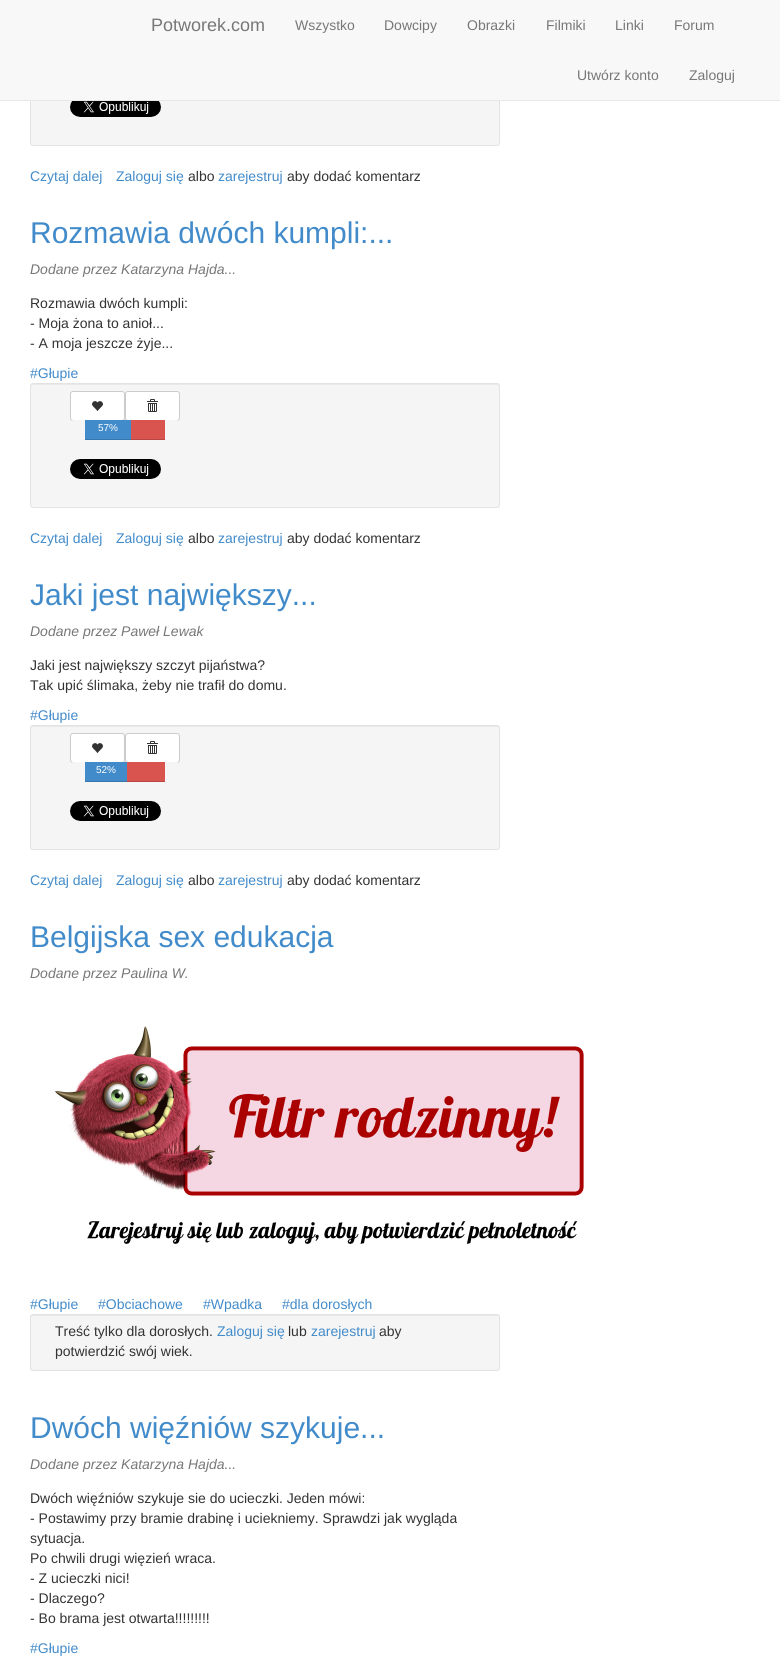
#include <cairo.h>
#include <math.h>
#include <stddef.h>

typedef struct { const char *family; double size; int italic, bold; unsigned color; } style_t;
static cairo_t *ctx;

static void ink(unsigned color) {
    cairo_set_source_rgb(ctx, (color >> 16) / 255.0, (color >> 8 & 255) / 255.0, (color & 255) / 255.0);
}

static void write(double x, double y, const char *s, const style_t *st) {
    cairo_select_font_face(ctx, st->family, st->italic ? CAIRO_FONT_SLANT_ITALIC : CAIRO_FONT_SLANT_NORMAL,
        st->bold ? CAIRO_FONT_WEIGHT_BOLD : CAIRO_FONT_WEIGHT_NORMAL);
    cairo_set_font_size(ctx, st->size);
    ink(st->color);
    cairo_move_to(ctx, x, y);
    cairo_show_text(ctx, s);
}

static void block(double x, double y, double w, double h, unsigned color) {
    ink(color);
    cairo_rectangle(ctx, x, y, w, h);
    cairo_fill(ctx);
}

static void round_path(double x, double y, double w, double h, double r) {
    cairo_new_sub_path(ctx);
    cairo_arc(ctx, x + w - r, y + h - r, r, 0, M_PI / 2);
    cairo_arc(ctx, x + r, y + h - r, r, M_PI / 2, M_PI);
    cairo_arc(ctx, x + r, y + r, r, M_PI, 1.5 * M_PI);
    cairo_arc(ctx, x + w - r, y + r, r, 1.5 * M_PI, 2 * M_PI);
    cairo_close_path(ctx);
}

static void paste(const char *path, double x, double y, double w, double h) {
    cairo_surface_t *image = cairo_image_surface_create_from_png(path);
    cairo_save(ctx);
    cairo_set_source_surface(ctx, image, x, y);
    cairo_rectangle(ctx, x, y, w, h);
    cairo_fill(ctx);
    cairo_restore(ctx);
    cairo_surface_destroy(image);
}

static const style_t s1 = {"Liberation Sans", 18, 0, 0, 0x777777};
static const style_t s2 = {"Liberation Sans", 14, 0, 0, 0x777777};
static const style_t s3 = {"Liberation Sans", 14, 0, 0, 0x428bca};
static const style_t s4 = {"Liberation Sans", 14, 0, 0, 0x333333};
static const style_t s5 = {"Liberation Sans", 30, 0, 0, 0x428bca};
static const style_t s6 = {"Liberation Sans", 14, 1, 0, 0x777777};
static const style_t s7 = {"Liberation Sans", 10, 0, 0, 0xffffff};

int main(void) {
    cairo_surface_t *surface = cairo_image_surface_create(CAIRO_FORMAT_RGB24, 780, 1657);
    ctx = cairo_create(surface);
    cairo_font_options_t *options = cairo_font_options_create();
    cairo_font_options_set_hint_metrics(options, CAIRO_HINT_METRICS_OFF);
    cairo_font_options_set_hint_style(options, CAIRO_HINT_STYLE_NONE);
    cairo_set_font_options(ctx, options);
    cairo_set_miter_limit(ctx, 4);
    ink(0xffffff);
    cairo_paint(ctx);
    ink(0xf5f5f5);
    round_path(30.5, 21.5, 469, 124, 2.5);
    cairo_fill_preserve(ctx);
    ink(0xe3e3e3);
    cairo_set_line_width(ctx, 1);
    cairo_stroke(ctx);
    block(0, 0, 780, 100, 0xf8f8f8);
    block(0, 100, 780, 1, 0xe7e7e7);
    write(151, 31, "Potworek.com", &s1);
    write(295, 30, "Wszystko", &s2);
    write(384, 30, "Dowcipy", &s2);
    write(467, 30, "Obrazki", &s2);
    write(546, 30, "Filmiki", &s2);
    write(615, 30, "Linki", &s2);
    write(674, 30, "Forum", &s2);
    write(577, 80, "Utwórz konto", &s2);
    write(689, 80, "Zaloguj", &s2);
    paste("pic1.png", 70, 101, 91, 16);
    write(30, 181, "Czytaj dalej", &s3);
    write(116, 181, "Zaloguj się", &s3);
    write(188, 181, "albo", &s4);
    write(218, 181, "zarejestruj", &s3);
    write(287, 181, "aby dodać komentarz", &s4);
    write(30, 243, "Rozmawia dwóch kumpli:...", &s5);
    write(30, 274, "Dodane przez Katarzyna Hajda...", &s6);
    write(30, 308, "Rozmawia dwóch kumpli:", &s4);
    write(30, 328, "- Moja żona to anioł...", &s4);
    write(30, 348, "- A moja jeszcze żyje...", &s4);
    write(30, 378, "#Głupie", &s3);
    ink(0xf5f5f5);
    round_path(30, 383, 470, 125, 3);
    cairo_fill(ctx);
    ink(0xe9e9e9);
    cairo_new_path(ctx);
    cairo_move_to(ctx, 33, 385);
    cairo_line_to(ctx, 497, 385);
    cairo_curve_to(ctx, 498, 385, 499, 386, 499, 387);
    cairo_line_to(ctx, 499, 385);
    cairo_line_to(ctx, 497, 384);
    cairo_line_to(ctx, 33, 384);
    cairo_curve_to(ctx, 31, 384, 31, 386, 31, 387);
    cairo_curve_to(ctx, 31, 386, 32, 385, 33, 385);
    cairo_close_path(ctx);
    cairo_fill(ctx);
    round_path(30.5, 383.5, 469, 124, 2.5);
    ink(0xe3e3e3);
    cairo_stroke(ctx);
    ink(0xffffff);
    round_path(70.5, 391.5, 54, 29, 2.5);
    cairo_fill_preserve(ctx);
    ink(0xcccccc);
    cairo_stroke(ctx);
    paste("pic2.png", 92, 401, 11, 10);
    ink(0xffffff);
    round_path(125.5, 391.5, 54, 29, 2.5);
    cairo_fill_preserve(ctx);
    ink(0xcccccc);
    cairo_stroke(ctx);
    paste("pic3.png", 147, 399, 11, 13);
    ink(0xf5f5f5);
    round_path(70, 420, 110, 20, 4);
    cairo_fill(ctx);
    block(85, 420, 46, 19, 0x428bca);
    block(85, 439, 46, 1, 0x3876ac);
    write(98, 431, "57%", &s7);
    block(131, 420, 34, 19, 0xd9534f);
    block(131, 439, 34, 1, 0xb84743);
    paste("pic4.png", 70, 459, 91, 20);
    write(30, 543, "Czytaj dalej", &s3);
    write(116, 543, "Zaloguj się", &s3);
    write(188, 543, "albo", &s4);
    write(218, 543, "zarejestruj", &s3);
    write(287, 543, "aby dodać komentarz", &s4);
    write(30, 605, "Jaki jest największy...", &s5);
    write(30, 636, "Dodane przez Paweł Lewak", &s6);
    write(30, 670, "Jaki jest największy szczyt pijaństwa?", &s4);
    write(30, 690, "Tak upić ślimaka, żeby nie trafił do domu.", &s4);
    write(30, 720, "#Głupie", &s3);
    ink(0xf5f5f5);
    round_path(30, 725, 470, 125, 3);
    cairo_fill(ctx);
    ink(0xe9e9e9);
    cairo_new_path(ctx);
    cairo_move_to(ctx, 33, 727);
    cairo_line_to(ctx, 497, 727);
    cairo_curve_to(ctx, 498, 727, 499, 728, 499, 729);
    cairo_line_to(ctx, 499, 727);
    cairo_line_to(ctx, 497, 726);
    cairo_line_to(ctx, 33, 726);
    cairo_curve_to(ctx, 31, 726, 31, 728, 31, 729);
    cairo_curve_to(ctx, 31, 728, 32, 727, 33, 727);
    cairo_close_path(ctx);
    cairo_fill(ctx);
    round_path(30.5, 725.5, 469, 124, 2.5);
    ink(0xe3e3e3);
    cairo_stroke(ctx);
    ink(0xffffff);
    round_path(70.5, 733.5, 54, 29, 2.5);
    cairo_fill_preserve(ctx);
    ink(0xcccccc);
    cairo_stroke(ctx);
    paste("pic2.png", 92, 743, 11, 10);
    ink(0xffffff);
    round_path(125.5, 733.5, 54, 29, 2.5);
    cairo_fill_preserve(ctx);
    ink(0xcccccc);
    cairo_stroke(ctx);
    paste("pic3.png", 147, 741, 11, 13);
    ink(0xf5f5f5);
    round_path(70, 762, 110, 20, 4);
    cairo_fill(ctx);
    block(85, 762, 42, 19, 0x428bca);
    block(85, 781, 42, 1, 0x3876ac);
    write(96, 773, "52%", &s7);
    block(127, 762, 38, 19, 0xd9534f);
    block(127, 781, 38, 1, 0xb84743);
    paste("pic4.png", 70, 801, 91, 20);
    write(30, 885, "Czytaj dalej", &s3);
    write(116, 885, "Zaloguj się", &s3);
    write(188, 885, "albo", &s4);
    write(218, 885, "zarejestruj", &s3);
    write(287, 885, "aby dodać komentarz", &s4);
    write(30, 947, "Belgijska sex edukacja", &s5);
    write(30, 978, "Dodane przez Paulina W.", &s6);
    paste("pic5.png", 55, 1026, 529, 218);
    write(30, 1309, "#Głupie", &s3);
    write(98, 1309, "#Obciachowe", &s3);
    write(203, 1309, "#Wpadka", &s3);
    write(282, 1309, "#dla dorosłych", &s3);
    ink(0xf5f5f5);
    round_path(30, 1314, 470, 57, 3);
    cairo_fill(ctx);
    ink(0xe9e9e9);
    cairo_new_path(ctx);
    cairo_move_to(ctx, 33, 1316);
    cairo_line_to(ctx, 498, 1316);
    cairo_line_to(ctx, 499, 1317);
    cairo_curve_to(ctx, 499, 1316, 498, 1315, 497, 1315);
    cairo_line_to(ctx, 33, 1315);
    cairo_curve_to(ctx, 32, 1315, 31, 1316, 31, 1317);
    cairo_close_path(ctx);
    cairo_fill(ctx);
    round_path(30.5, 1314.5, 469, 56, 2.5);
    ink(0xe3e3e3);
    cairo_stroke(ctx);
    write(55, 1336, "Treść tylko dla dorosłych.", &s4);
    write(217, 1336, "Zaloguj się", &s3);
    write(288, 1336, "lub", &s4);
    write(311, 1336, "zarejestruj", &s3);
    write(379, 1336, "aby", &s4);
    write(55, 1356, "potwierdzić swój wiek.", &s4);
    write(30, 1438, "Dwóch więźniów szykuje...", &s5);
    write(30, 1469, "Dodane przez Katarzyna Hajda...", &s6);
    write(30, 1503, "Dwóch więźniów szykuje sie do ucieczki. Jeden mówi:", &s4);
    write(30, 1523, "- Postawimy przy bramie drabinę i uciekniemy. Sprawdzi jak wygląda", &s4);
    write(30, 1543, "sytuacja.", &s4);
    write(30, 1563, "Po chwili drugi więzień wraca.", &s4);
    write(30, 1583, "- Z ucieczki nici!", &s4);
    write(30, 1603, "- Dlaczego?", &s4);
    write(30, 1623, "- Bo brama jest otwarta!!!!!!!!!", &s4);
    write(30, 1653, "#Głupie", &s3);
    cairo_surface_write_to_png(surface, "screenshot.png");
    cairo_font_options_destroy(options);
    cairo_destroy(ctx);
    cairo_surface_destroy(surface);
    return 0;
}
